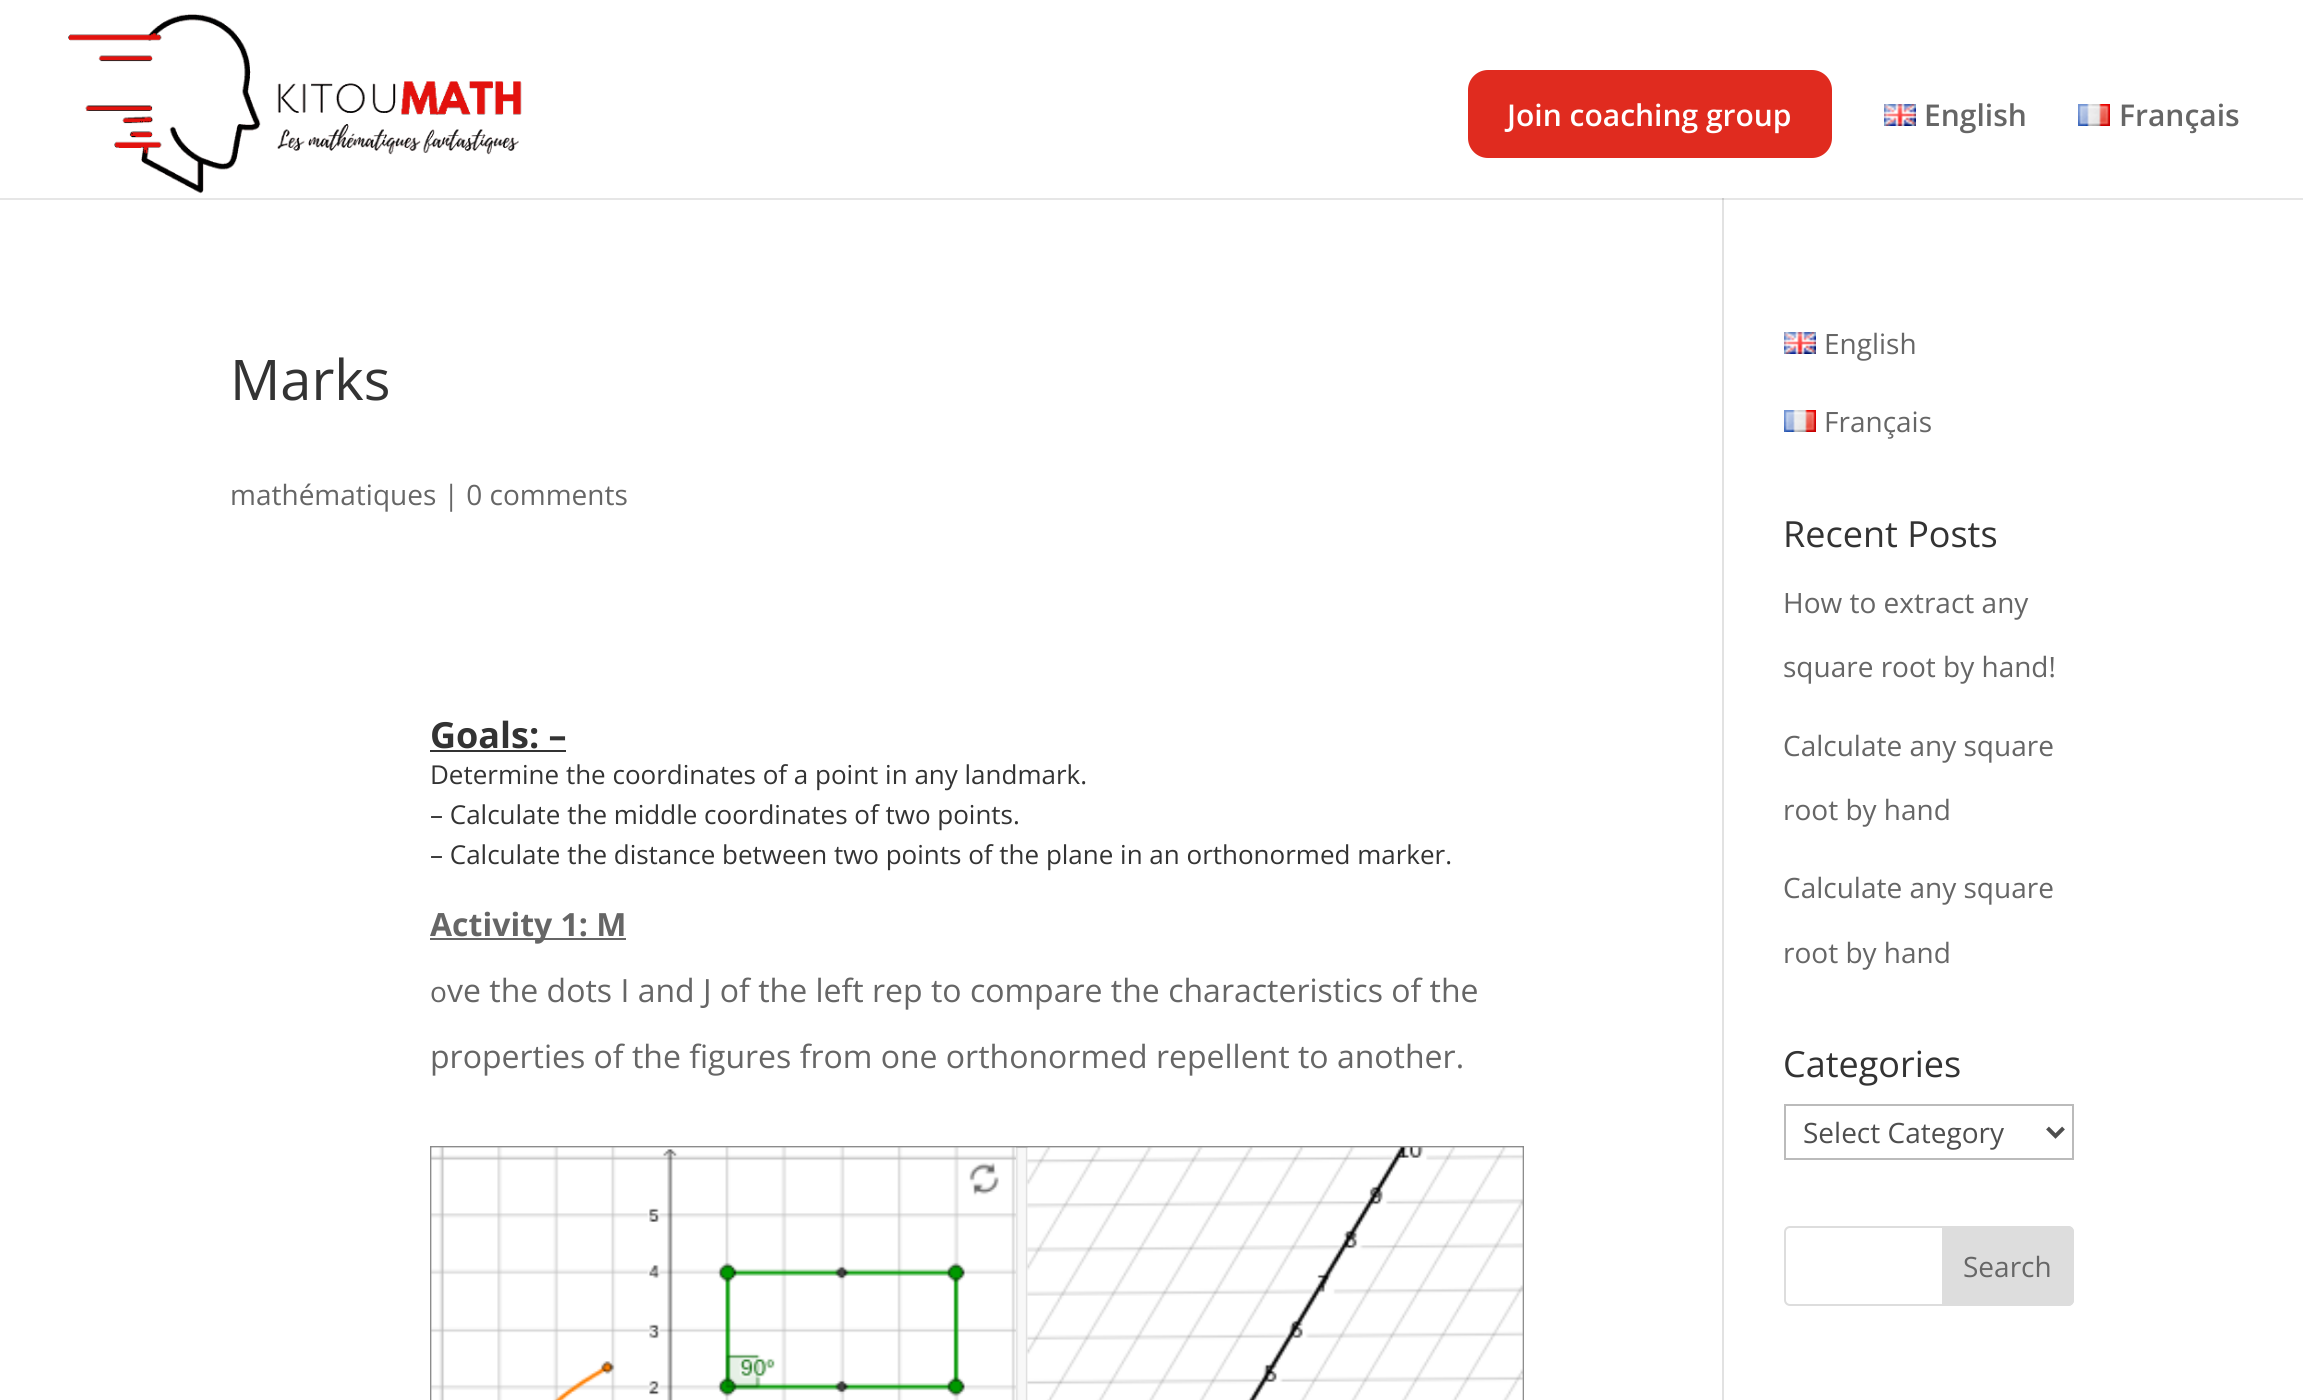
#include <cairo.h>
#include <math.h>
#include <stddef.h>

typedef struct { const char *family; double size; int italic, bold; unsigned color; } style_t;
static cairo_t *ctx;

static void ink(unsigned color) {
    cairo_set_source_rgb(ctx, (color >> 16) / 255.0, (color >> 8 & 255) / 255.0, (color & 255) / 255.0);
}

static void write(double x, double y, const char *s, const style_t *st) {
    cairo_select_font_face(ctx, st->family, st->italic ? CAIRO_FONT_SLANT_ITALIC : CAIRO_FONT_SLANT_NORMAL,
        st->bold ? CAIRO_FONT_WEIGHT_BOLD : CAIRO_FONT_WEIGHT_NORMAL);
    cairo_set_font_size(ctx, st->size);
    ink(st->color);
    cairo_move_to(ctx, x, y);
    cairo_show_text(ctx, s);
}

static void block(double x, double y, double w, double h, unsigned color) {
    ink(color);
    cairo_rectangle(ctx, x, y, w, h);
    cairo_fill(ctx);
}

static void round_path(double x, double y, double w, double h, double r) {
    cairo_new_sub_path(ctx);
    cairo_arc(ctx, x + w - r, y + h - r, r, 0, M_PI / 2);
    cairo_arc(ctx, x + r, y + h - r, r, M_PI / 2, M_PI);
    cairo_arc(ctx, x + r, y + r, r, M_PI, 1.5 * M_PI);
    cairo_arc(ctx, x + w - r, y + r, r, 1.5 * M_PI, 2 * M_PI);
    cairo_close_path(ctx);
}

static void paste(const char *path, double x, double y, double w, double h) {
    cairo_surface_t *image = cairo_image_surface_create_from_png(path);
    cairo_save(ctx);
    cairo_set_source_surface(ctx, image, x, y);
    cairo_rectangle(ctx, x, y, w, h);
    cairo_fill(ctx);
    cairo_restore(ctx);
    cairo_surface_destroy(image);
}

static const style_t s1 = {"Open Sans SemiBold", 30, 0, 0, 0xffffff};
static const style_t s2 = {"Open Sans SemiBold", 30, 0, 0, 0x666666};
static const style_t s3 = {"Open Sans", 56, 0, 0, 0x333333};
static const style_t s4 = {"Open Sans", 28, 0, 0, 0x666666};
static const style_t s5 = {"Open Sans", 36, 0, 1, 0x333333};
static const style_t s6 = {"Open Sans", 26, 0, 0, 0x333333};
static const style_t s7 = {"Open Sans", 32, 0, 1, 0x666666};
static const style_t s8 = {"Open Sans", 32, 0, 0, 0x666666};
static const style_t s9 = {"Open Sans", 36, 0, 0, 0x333333};
static const style_t s10 = {"Open Sans", 28, 0, 0, 0x4e4e4e};

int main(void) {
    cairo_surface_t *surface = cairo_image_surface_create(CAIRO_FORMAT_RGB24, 2303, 1400);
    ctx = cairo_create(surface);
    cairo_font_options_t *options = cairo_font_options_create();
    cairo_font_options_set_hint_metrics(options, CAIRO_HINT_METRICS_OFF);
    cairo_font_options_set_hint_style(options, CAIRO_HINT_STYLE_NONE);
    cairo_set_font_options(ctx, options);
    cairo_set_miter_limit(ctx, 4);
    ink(0xffffff);
    cairo_paint(ctx);
    block(0, 198, 2303, 2, 0xe6e6e6);
    block(1722, 196, 2, 1204, 0xe2e2e2);
    block(1722, 196, 2, 2, 0xffffff);
    paste("pic1.png", 68, 14, 454, 180);
    ink(0xe02b1f);
    round_path(1468, 70, 364, 88, 20);
    cairo_fill(ctx);
    write(1507, 126, "Join coaching group", &s1);
    paste("pic2.png", 1884, 104, 32, 22);
    write(1924, 126, "English", &s2);
    paste("pic3.png", 2078, 104, 32, 22);
    write(2119, 126, "Français", &s2);
    block(1722, 198, 2, 2, 0xcbcbcb);
    write(230, 400, "Marks", &s3);
    write(230, 505, "mathématiques | 0 comments", &s4);
    write(430, 748, "Goals: –", &s5);
    block(430, 750, 136, 2, 0x333333);
    write(430, 784, "Determine the coordinates of a point in any landmark.", &s6);
    write(430, 824, "– Calculate the middle coordinates of two points.", &s6);
    write(430, 864, "– Calculate the distance between two points of the plane in an orthonormed marker.", &s6);
    block(430, 938, 196, 2, 0x666666);
    write(430, 936, "Activity 1: M", &s7);
    write(430, 1002, "o", &s4);
    write(447, 1002, "ve the dots I and J of the left rep to compare the characteristics of the", &s8);
    write(430, 1068, "properties of the figures from one orthonormed repellent to another.", &s8);
    paste("pic4.png", 430, 1146, 1094, 254);
    paste("pic2.png", 1784, 332, 32, 22);
    write(1824, 354, "English", &s4);
    paste("pic3.png", 1784, 410, 32, 22);
    write(1824, 432, "Français", &s4);
    write(1783, 547, "Recent Posts", &s9);
    write(1783, 613, "How to extract any", &s4);
    write(1783, 677, "square root by hand!", &s4);
    write(1783, 756, "Calculate any square", &s4);
    write(1783, 820, "root by hand", &s4);
    write(1783, 898, "Calculate any square", &s4);
    write(1783, 963, "root by hand", &s4);
    write(1783, 1077, "Categories", &s9);
    cairo_rectangle(ctx, 1785, 1105, 288, 54);
    ink(0xbbbbbb);
    cairo_stroke(ctx);
    cairo_new_path(ctx);
    cairo_move_to(ctx, 2047.5, 1128);
    cairo_line_to(ctx, 2055.5, 1136);
    cairo_line_to(ctx, 2063.5, 1128);
    ink(0x4e4e4e);
    cairo_set_line_width(ctx, 4);
    cairo_stroke(ctx);
    write(1803, 1143, "Select Category", &s10);
    round_path(1785, 1227, 288, 78, 5);
    ink(0xdddddd);
    cairo_set_line_width(ctx, 2);
    cairo_stroke(ctx);
    cairo_new_path(ctx);
    cairo_move_to(ctx, 1943, 1227);
    cairo_line_to(ctx, 2068, 1227);
    cairo_curve_to(ctx, 2071, 1227, 2073, 1229, 2073, 1232);
    cairo_line_to(ctx, 2073, 1300);
    cairo_curve_to(ctx, 2073, 1303, 2071, 1305, 2068, 1305);
    cairo_line_to(ctx, 1943, 1305);
    cairo_close_path(ctx);
    cairo_fill_preserve(ctx);
    cairo_stroke(ctx);
    write(1963, 1277, "Search", &s4);
    cairo_surface_write_to_png(surface, "screenshot.png");
    cairo_font_options_destroy(options);
    cairo_destroy(ctx);
    cairo_surface_destroy(surface);
    return 0;
}
